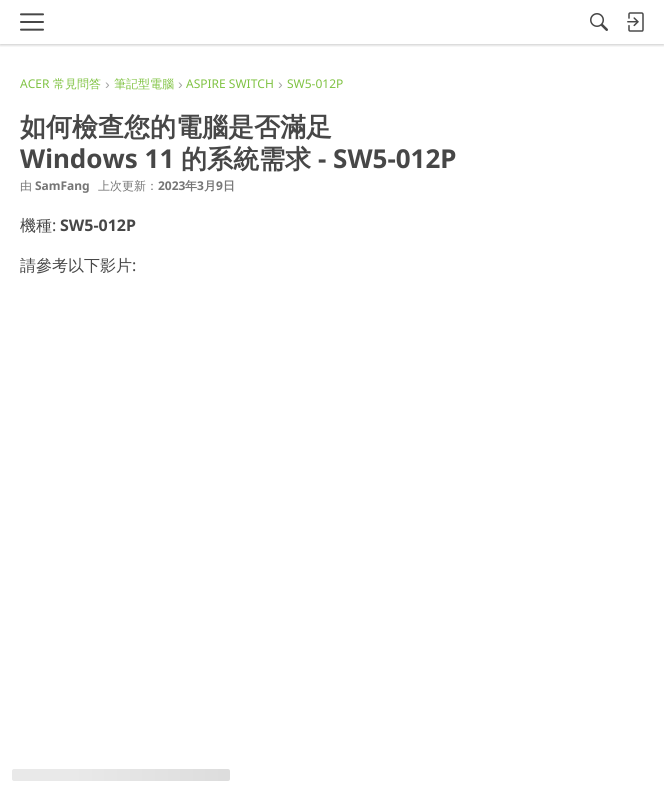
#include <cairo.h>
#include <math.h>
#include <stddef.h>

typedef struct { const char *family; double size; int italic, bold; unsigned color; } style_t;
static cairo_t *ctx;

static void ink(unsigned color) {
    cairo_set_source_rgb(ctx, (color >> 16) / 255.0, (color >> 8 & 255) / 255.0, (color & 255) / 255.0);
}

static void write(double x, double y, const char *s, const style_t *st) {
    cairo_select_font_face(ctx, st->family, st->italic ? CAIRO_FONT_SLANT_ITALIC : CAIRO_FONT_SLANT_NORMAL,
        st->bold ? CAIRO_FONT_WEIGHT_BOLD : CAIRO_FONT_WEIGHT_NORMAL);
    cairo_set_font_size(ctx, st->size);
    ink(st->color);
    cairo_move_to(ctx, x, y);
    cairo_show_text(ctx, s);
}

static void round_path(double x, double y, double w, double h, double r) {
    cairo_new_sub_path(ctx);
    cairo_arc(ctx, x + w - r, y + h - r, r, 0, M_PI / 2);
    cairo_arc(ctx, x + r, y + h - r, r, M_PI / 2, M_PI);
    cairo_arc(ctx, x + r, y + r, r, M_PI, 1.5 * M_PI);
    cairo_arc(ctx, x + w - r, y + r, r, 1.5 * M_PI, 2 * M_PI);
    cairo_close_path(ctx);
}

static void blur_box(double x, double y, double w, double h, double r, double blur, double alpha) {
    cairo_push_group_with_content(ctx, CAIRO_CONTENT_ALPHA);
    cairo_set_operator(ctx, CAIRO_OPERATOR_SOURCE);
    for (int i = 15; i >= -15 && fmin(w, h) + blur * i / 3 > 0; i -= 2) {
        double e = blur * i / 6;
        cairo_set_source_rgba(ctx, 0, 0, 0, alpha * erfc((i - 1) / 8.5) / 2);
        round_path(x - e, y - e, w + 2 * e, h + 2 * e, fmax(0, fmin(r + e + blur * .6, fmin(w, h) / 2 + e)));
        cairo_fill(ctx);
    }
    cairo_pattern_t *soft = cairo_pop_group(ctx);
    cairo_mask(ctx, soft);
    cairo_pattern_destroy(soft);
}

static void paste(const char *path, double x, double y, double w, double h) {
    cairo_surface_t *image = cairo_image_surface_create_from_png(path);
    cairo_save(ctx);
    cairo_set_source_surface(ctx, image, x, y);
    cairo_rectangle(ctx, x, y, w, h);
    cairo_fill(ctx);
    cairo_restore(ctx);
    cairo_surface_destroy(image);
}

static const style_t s1 = {"Noto Sans", 12, 0, 0, 0x80c343};
static const style_t s2 = {"WenQuanYi Zen Hei Medium", 12, 0, 0, 0x80c343};
static const style_t s3 = {"Liberation Sans", 14, 0, 0, 0xa3a3a3};
static const style_t s4 = {"WenQuanYi Zen Hei", 26, 0, 1, 0x474747};
static const style_t s5 = {"Noto Sans", 26, 0, 1, 0x474747};
static const style_t s6 = {"WenQuanYi Zen Hei Medium", 12, 0, 0, 0x767676};
static const style_t s7 = {"Noto Sans", 12, 0, 1, 0x767676};
static const style_t s8 = {"WenQuanYi Zen Hei", 12, 0, 1, 0x767676};
static const style_t s9 = {"WenQuanYi Zen Hei Medium", 16, 0, 0, 0x474747};
static const style_t s10 = {"Noto Sans", 16, 0, 0, 0x474747};
static const style_t s11 = {"Noto Sans", 16, 0, 1, 0x474747};

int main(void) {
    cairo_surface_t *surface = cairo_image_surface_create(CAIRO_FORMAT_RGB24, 664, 786);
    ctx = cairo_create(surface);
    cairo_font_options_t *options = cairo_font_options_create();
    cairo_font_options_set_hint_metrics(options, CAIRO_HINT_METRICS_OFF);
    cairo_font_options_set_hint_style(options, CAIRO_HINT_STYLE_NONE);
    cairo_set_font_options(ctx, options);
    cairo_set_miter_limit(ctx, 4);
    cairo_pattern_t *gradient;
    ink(0xffffff);
    cairo_paint(ctx);
    cairo_save(ctx);
    cairo_rectangle(ctx, 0, 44, 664, 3);
    cairo_clip(ctx);
    ink(0x000000);
    blur_box(0, 1, 664, 44, 0, 1.5, 0.22);
    cairo_restore(ctx);
    paste("pic1.png", 20, 13, 24, 18);
    paste("pic2.png", 590, 13, 18, 18);
    paste("pic3.png", 627, 12, 17, 20);
    write(20, 88, "ACER", &s1);
    write(53, 88, "常見問答", &s2);
    write(105, 89, "›", &s3);
    write(114, 88, "筆記型電腦", &s2);
    write(178, 89, "›", &s3);
    write(186, 88, "ASPIRE SWITCH", &s1);
    write(278, 89, "›", &s3);
    write(287, 88, "SW5-012P", &s1);
    write(20, 136, "如何檢查您的電腦是否滿足", &s4);
    write(20, 168, "Windows 11", &s5);
    write(181, 168, "的系統需求", &s4);
    write(318, 168, "- SW5-012P", &s5);
    write(20, 190, "由", &s6);
    write(35, 190, "SamFang", &s7);
    write(98, 190, "上次更新：", &s6);
    write(158, 190, "2023", &s7);
    write(185, 190, "年", &s8);
    write(197, 190, "3", &s7);
    write(204, 190, "月", &s8);
    write(216, 190, "9", &s7);
    write(223, 190, "日", &s8);
    write(20, 231, "機種", &s9);
    write(52, 231, ":", &s10);
    write(60, 231, "SW5-012P", &s11);
    write(20, 271, "請參考以下影片", &s9);
    write(132, 271, ":", &s10);
    gradient = cairo_pattern_create_linear(12, 775, 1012, 775);
    cairo_pattern_add_color_stop_rgba(gradient, 0.06, 0.914, 0.914, 0.914, 1);
    cairo_pattern_add_color_stop_rgba(gradient, 0.25, 0.855, 0.855, 0.855, 1);
    cairo_pattern_add_color_stop_rgba(gradient, 0.34, 0.914, 0.914, 0.914, 1);
    cairo_set_source(ctx, gradient);
    cairo_pattern_destroy(gradient);
    round_path(12, 769, 218, 12, 2);
    cairo_fill(ctx);
    cairo_surface_write_to_png(surface, "screenshot.png");
    cairo_font_options_destroy(options);
    cairo_destroy(ctx);
    cairo_surface_destroy(surface);
    return 0;
}
